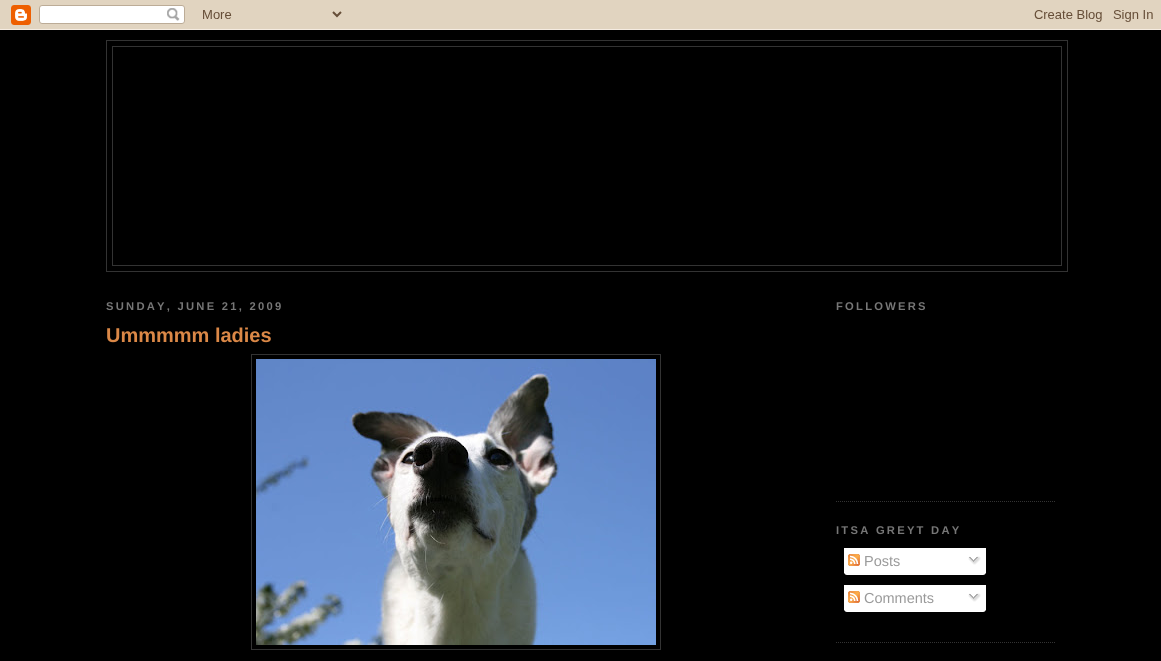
#include <cairo.h>
#include <math.h>
#include <stddef.h>

typedef struct { const char *family; double size; int italic, bold; unsigned color; } style_t;
static cairo_t *ctx;

static void ink(unsigned color) {
    cairo_set_source_rgb(ctx, (color >> 16) / 255.0, (color >> 8 & 255) / 255.0, (color & 255) / 255.0);
}

static void write(double x, double y, const char *s, const style_t *st) {
    cairo_select_font_face(ctx, st->family, st->italic ? CAIRO_FONT_SLANT_ITALIC : CAIRO_FONT_SLANT_NORMAL,
        st->bold ? CAIRO_FONT_WEIGHT_BOLD : CAIRO_FONT_WEIGHT_NORMAL);
    cairo_set_font_size(ctx, st->size);
    ink(st->color);
    cairo_move_to(ctx, x, y);
    cairo_show_text(ctx, s);
}

static void write_spaced(double x, double y, const char *s, double letter, double word) {
    cairo_move_to(ctx, x, y);
    while (*s) {
        char ch[5] = {0};
        int n = 0;
        do ch[n++] = *s++; while ((*s & 0xC0) == 0x80);
        cairo_show_text(ctx, ch);
        cairo_rel_move_to(ctx, letter + word * (*ch == ' '), 0);
    }
}

static void block(double x, double y, double w, double h, unsigned color) {
    ink(color);
    cairo_rectangle(ctx, x, y, w, h);
    cairo_fill(ctx);
}

static void paste(const char *path, double x, double y, double w, double h) {
    cairo_surface_t *image = cairo_image_surface_create_from_png(path);
    cairo_save(ctx);
    cairo_set_source_surface(ctx, image, x, y);
    cairo_rectangle(ctx, x, y, w, h);
    cairo_fill(ctx);
    cairo_restore(ctx);
    cairo_surface_destroy(image);
}

static const style_t s1 = {"Liberation Sans", 20, 0, 1, 0xdb8847};
static const style_t s2 = {"Liberation Sans", 14.5, 0, 0, 0x999999};

int main(void) {
    cairo_surface_t *surface = cairo_image_surface_create(CAIRO_FORMAT_RGB24, 1161, 661);
    ctx = cairo_create(surface);
    cairo_font_options_t *options = cairo_font_options_create();
    cairo_font_options_set_hint_metrics(options, CAIRO_HINT_METRICS_OFF);
    cairo_font_options_set_hint_style(options, CAIRO_HINT_STYLE_NONE);
    cairo_set_font_options(ctx, options);
    cairo_set_miter_limit(ctx, 4);
    ink(0x000000);
    cairo_paint(ctx);
    paste("pic1.png", 0, 0, 1161, 30);
    cairo_rectangle(ctx, 106.5, 40.5, 961, 231);
    ink(0x333333);
    cairo_set_line_width(ctx, 1);
    cairo_stroke(ctx);
    cairo_rectangle(ctx, 112.5, 46.5, 949, 219);
    cairo_stroke(ctx);
    cairo_select_font_face(ctx, "Liberation Sans", CAIRO_FONT_SLANT_NORMAL, CAIRO_FONT_WEIGHT_BOLD);
    cairo_set_font_size(ctx, 11.2);
    ink(0x777777);
    write_spaced(106, 310, "SUNDAY, JUNE 21, 2009", 2.25, 0);
    write(106, 342, "Ummmmm ladies", &s1);
    cairo_rectangle(ctx, 251.5, 354.5, 409, 295);
    ink(0x333333);
    cairo_stroke(ctx);
    paste("pic2.png", 256, 359, 400, 286);
    cairo_new_path(ctx);
    cairo_move_to(ctx, 836, 501.5);
    cairo_line_to(ctx, 1056, 501.5);
    cairo_set_dash(ctx, (double[]){1, 1}, 2, 0);
    cairo_stroke(ctx);
    cairo_set_font_size(ctx, 11.2);
    ink(0x777777);
    write_spaced(836, 310, "FOLLOWERS", 2.25, 0);
    cairo_new_path(ctx);
    cairo_move_to(ctx, 836, 642.5);
    cairo_line_to(ctx, 1056, 642.5);
    ink(0x333333);
    cairo_stroke(ctx);
    ink(0x777777);
    write_spaced(836, 534, "ITSA GREYT DAY", 2.25, 0);
    block(844, 548, 142, 25, 0xffffff);
    paste("pic3.png", 848, 554, 12, 12);
    write(864, 566, "Posts", &s2);
    paste("pic4.png", 968, 556, 13, 9);
    paste("pic5.png", 844, 573, 142, 2);
    block(844, 585, 142, 25, 0xffffff);
    paste("pic3.png", 848, 591, 12, 12);
    write(864, 603, "Comments", &s2);
    paste("pic4.png", 968, 593, 13, 9);
    paste("pic5.png", 844, 610, 142, 2);
    cairo_surface_write_to_png(surface, "screenshot.png");
    cairo_font_options_destroy(options);
    cairo_destroy(ctx);
    cairo_surface_destroy(surface);
    return 0;
}
